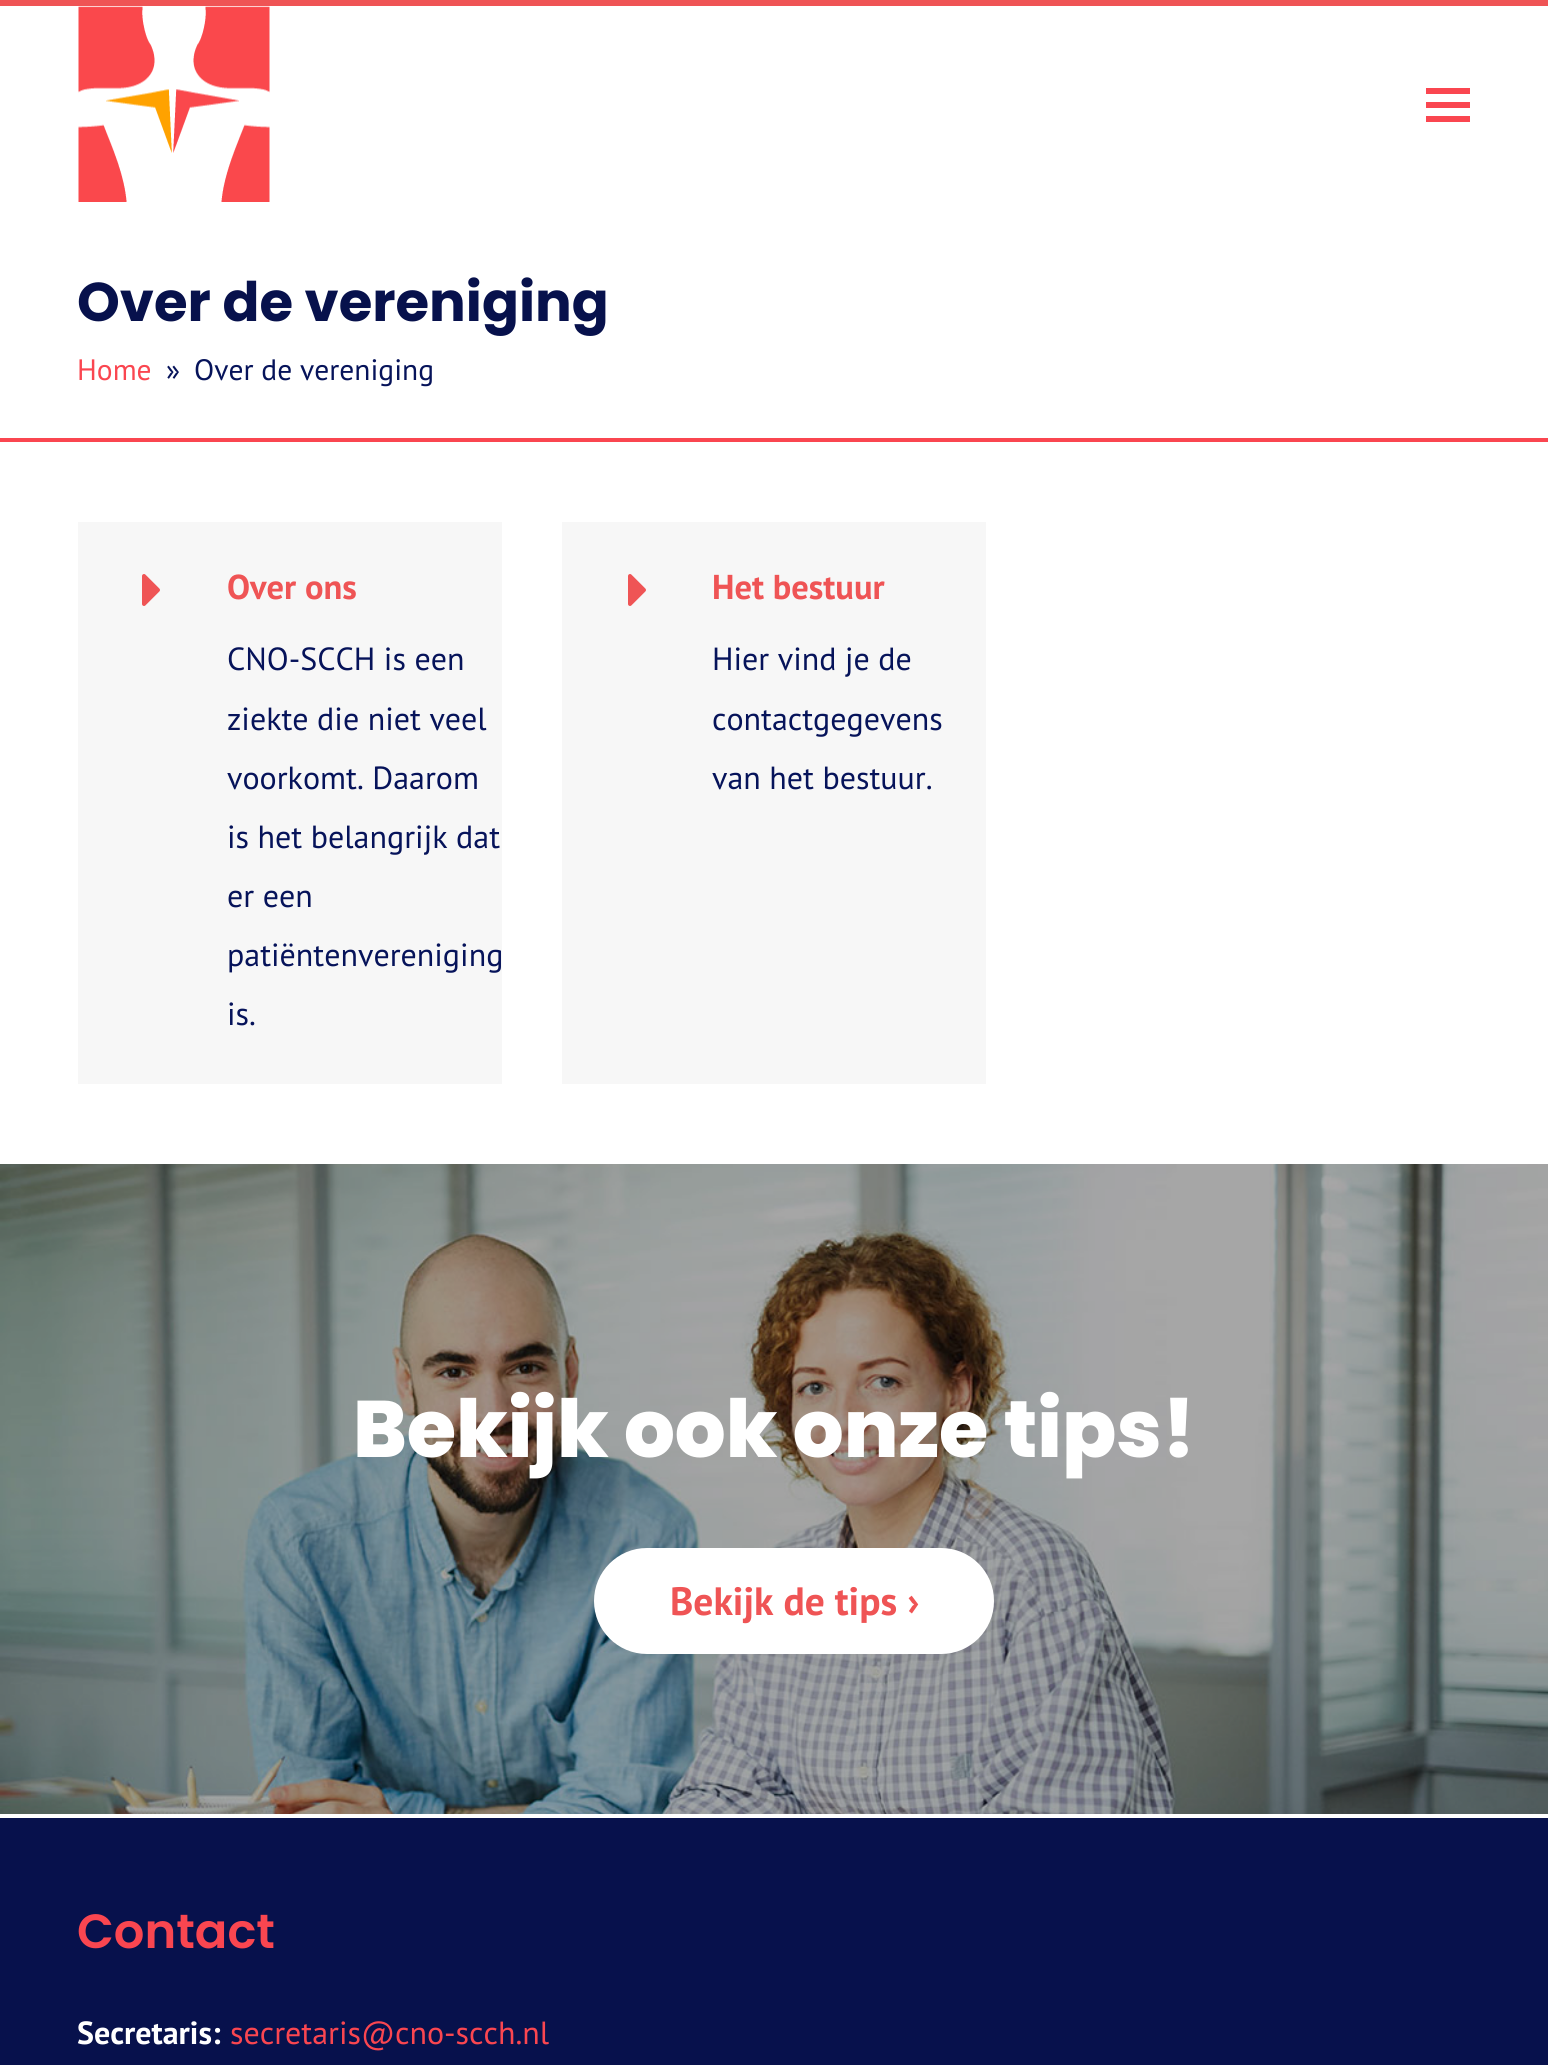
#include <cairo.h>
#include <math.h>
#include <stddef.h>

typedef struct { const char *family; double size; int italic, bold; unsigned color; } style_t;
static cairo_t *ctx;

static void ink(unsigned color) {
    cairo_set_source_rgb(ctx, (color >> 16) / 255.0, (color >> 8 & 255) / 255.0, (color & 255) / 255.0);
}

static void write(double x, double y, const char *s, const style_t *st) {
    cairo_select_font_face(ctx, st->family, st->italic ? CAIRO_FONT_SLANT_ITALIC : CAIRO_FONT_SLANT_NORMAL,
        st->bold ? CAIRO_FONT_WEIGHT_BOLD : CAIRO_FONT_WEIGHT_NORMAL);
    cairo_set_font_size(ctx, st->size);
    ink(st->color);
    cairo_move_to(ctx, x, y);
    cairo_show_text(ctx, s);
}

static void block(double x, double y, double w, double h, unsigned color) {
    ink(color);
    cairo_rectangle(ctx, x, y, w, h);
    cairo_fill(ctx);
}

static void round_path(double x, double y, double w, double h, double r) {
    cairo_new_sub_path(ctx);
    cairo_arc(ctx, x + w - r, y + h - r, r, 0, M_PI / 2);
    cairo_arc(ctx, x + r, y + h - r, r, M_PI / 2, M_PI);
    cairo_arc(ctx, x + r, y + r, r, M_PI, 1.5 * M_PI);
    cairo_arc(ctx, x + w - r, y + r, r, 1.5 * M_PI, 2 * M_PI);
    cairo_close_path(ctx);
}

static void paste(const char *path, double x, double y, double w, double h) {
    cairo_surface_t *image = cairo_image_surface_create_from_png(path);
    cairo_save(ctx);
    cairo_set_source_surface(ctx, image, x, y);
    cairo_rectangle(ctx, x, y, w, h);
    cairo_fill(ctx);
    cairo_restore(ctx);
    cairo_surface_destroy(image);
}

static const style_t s1 = {"Poppins", 54.5, 0, 1, 0x07114c};
static const style_t s2 = {"PT Sans", 29.5, 0, 0, 0xfa4650};
static const style_t s3 = {"PT Sans", 29.5, 0, 0, 0x06135a};
static const style_t s4 = {"PT Sans", 34.5, 0, 1, 0xef5455};
static const style_t s5 = {"PT Sans", 32, 0, 0, 0x06135a};
static const style_t s6 = {"Poppins ExtraBold", 80, 0, 0, 0xffffff};
static const style_t s7 = {"PT Sans", 39.5, 0, 1, 0xef5455};
static const style_t s8 = {"Poppins SemiBold", 48, 0, 0, 0xfa4650};
static const style_t s9 = {"PT Sans", 32, 0, 1, 0xffffff};
static const style_t s10 = {"PT Sans", 32, 0, 0, 0xfa4650};

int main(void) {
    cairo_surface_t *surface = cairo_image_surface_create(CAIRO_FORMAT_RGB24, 1548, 2065);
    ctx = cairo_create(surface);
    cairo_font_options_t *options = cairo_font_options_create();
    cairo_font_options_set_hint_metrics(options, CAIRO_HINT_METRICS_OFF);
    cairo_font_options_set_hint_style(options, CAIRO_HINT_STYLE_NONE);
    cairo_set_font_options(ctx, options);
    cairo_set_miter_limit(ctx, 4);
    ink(0xffffff);
    cairo_paint(ctx);
    block(0, 0, 1548, 6, 0xef5455);
    paste("pic1.png", 78, 6, 192, 196);
    block(1426, 102, 44, 6, 0xfa4650);
    block(1426, 88, 44, 6, 0xfa4650);
    block(1426, 116, 44, 6, 0xfa4650);
    block(0, 438, 1548, 4, 0xfa4650);
    write(77, 321, "Over de vereniging", &s1);
    write(77, 380, "Home", &s2);
    write(166, 380, "»", &s3);
    write(194, 380, "Over de vereniging", &s3);
    block(78, 522, 424, 562, 0xf7f7f7);
    paste("pic2.png", 142, 574, 18, 32);
    write(227, 599, "Over ons", &s4);
    write(227, 670, "CNO-SCCH is een", &s5);
    write(227, 730, "ziekte die niet veel", &s5);
    write(227, 789, "voorkomt. Daarom", &s5);
    write(227, 848, "is het belangrijk dat", &s5);
    write(227, 907, "er een", &s5);
    write(227, 966, "patiëntenvereniging", &s5);
    write(227, 1025, "is.", &s5);
    block(562, 522, 424, 562, 0xf7f7f7);
    paste("pic2.png", 628, 574, 18, 32);
    write(712, 599, "Het bestuur", &s4);
    write(712, 670, "Hier vind je de", &s5);
    write(712, 730, "contactgegevens", &s5);
    write(712, 789, "van het bestuur.", &s5);
    paste("pic3.png", 0, 1164, 1548, 650);
    write(353, 1457, "Bekijk ook onze tips!", &s6);
    round_path(594, 1548, 400, 106, 53);
    cairo_fill(ctx);
    write(670, 1615, "Bekijk de tips ›", &s7);
    block(0, 1818, 1548, 247, 0x07114c);
    write(77, 1948, "Contact", &s8);
    write(77, 2044, "Secretaris:", &s9);
    write(230, 2044, "secretaris@cno-scch.nl", &s10);
    cairo_surface_write_to_png(surface, "screenshot.png");
    cairo_font_options_destroy(options);
    cairo_destroy(ctx);
    cairo_surface_destroy(surface);
    return 0;
}
